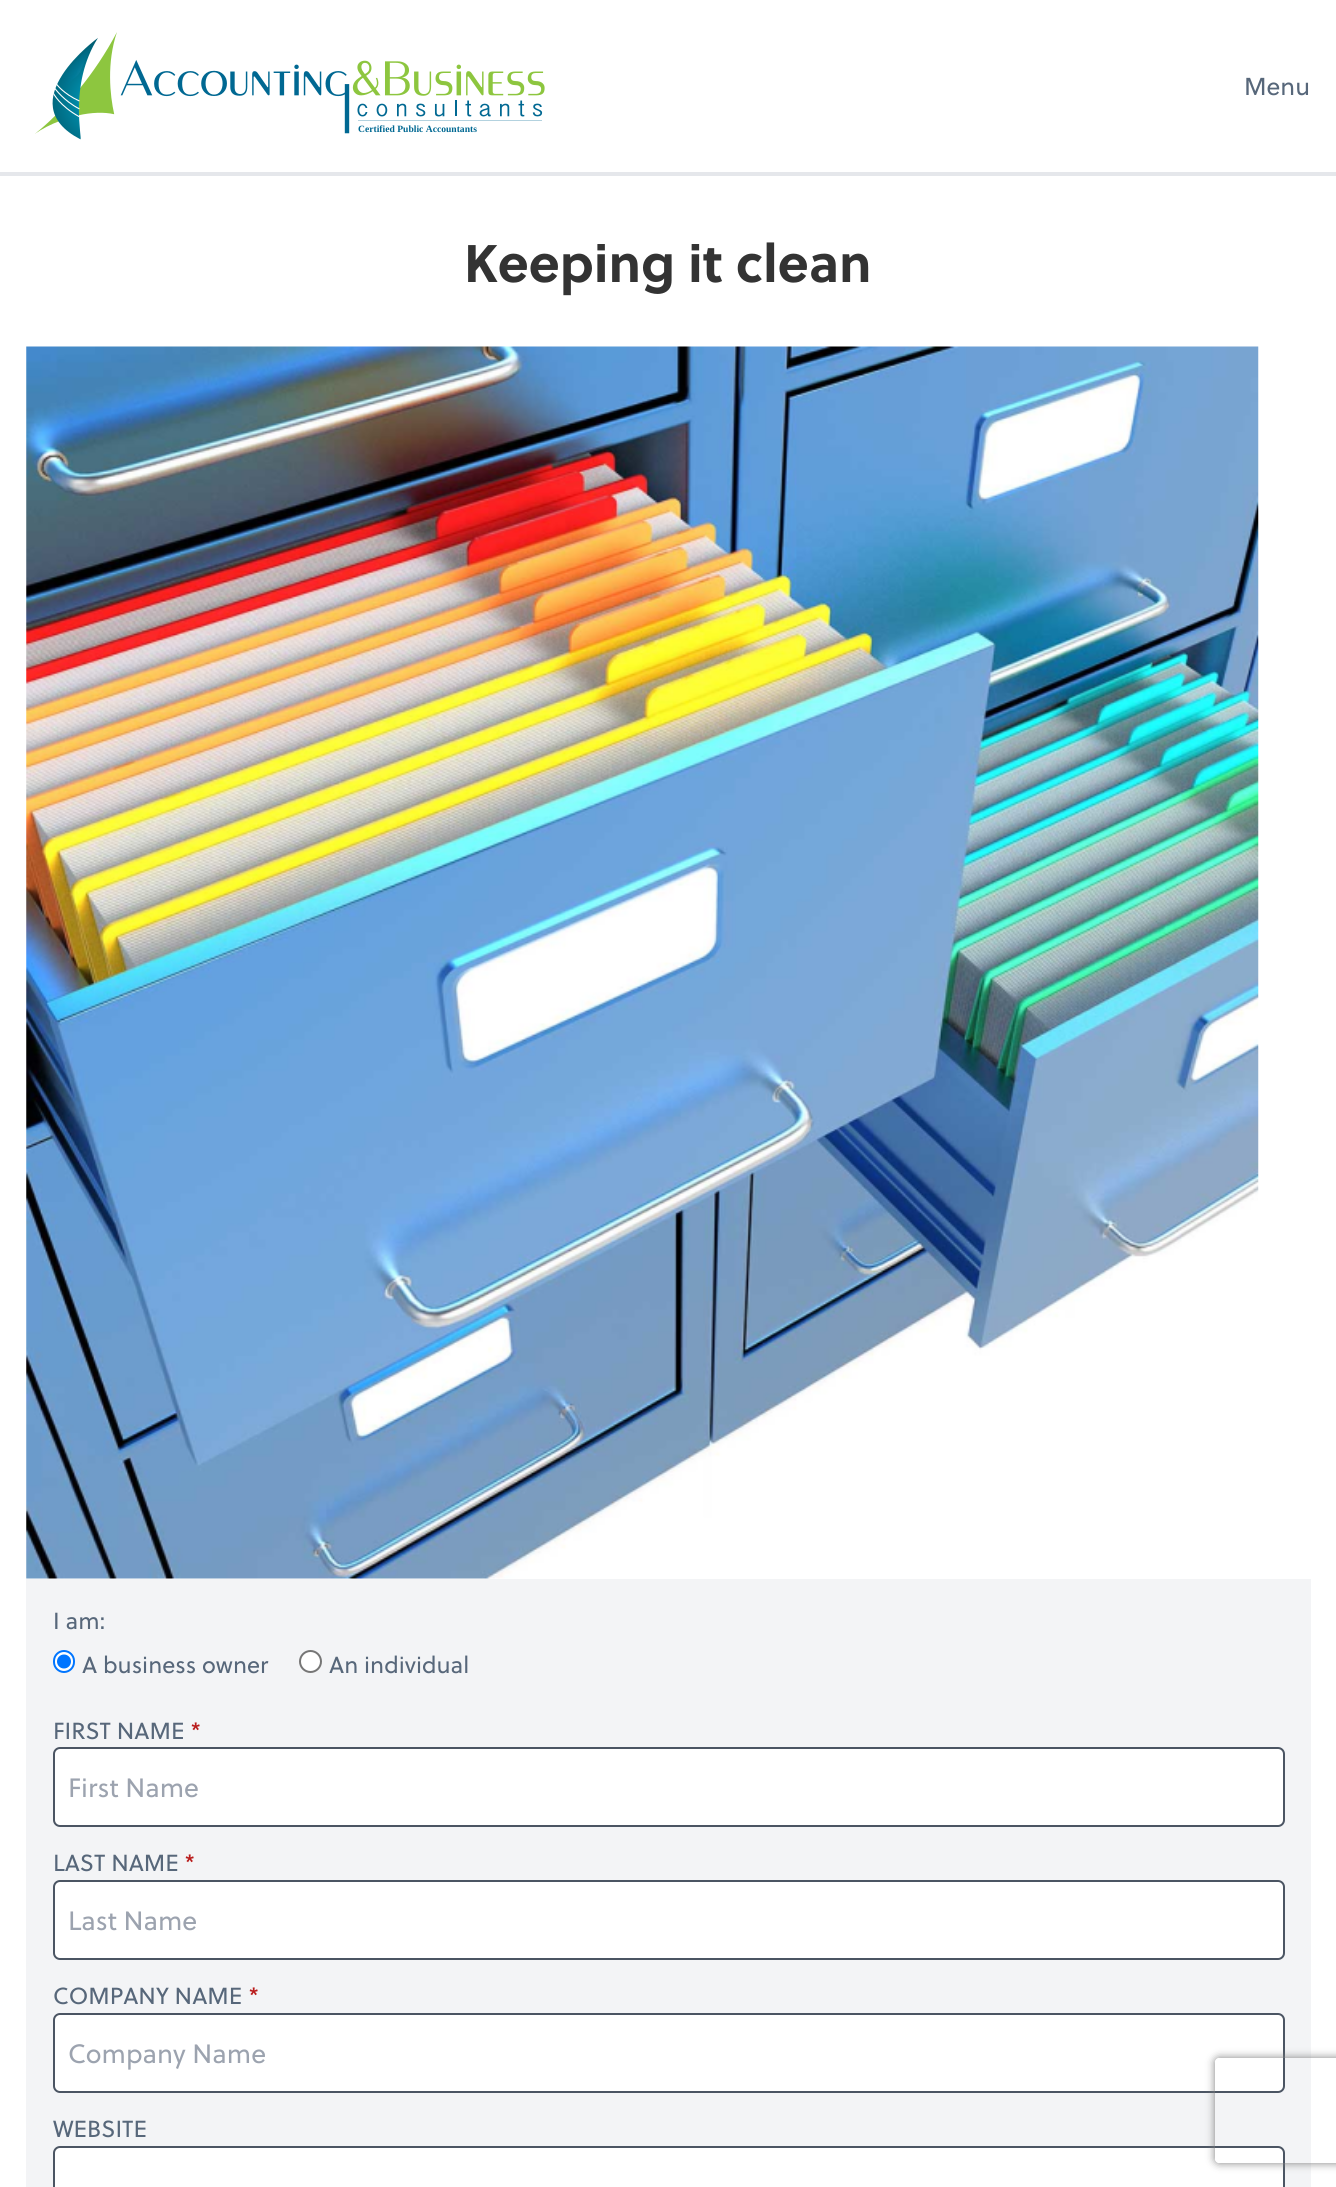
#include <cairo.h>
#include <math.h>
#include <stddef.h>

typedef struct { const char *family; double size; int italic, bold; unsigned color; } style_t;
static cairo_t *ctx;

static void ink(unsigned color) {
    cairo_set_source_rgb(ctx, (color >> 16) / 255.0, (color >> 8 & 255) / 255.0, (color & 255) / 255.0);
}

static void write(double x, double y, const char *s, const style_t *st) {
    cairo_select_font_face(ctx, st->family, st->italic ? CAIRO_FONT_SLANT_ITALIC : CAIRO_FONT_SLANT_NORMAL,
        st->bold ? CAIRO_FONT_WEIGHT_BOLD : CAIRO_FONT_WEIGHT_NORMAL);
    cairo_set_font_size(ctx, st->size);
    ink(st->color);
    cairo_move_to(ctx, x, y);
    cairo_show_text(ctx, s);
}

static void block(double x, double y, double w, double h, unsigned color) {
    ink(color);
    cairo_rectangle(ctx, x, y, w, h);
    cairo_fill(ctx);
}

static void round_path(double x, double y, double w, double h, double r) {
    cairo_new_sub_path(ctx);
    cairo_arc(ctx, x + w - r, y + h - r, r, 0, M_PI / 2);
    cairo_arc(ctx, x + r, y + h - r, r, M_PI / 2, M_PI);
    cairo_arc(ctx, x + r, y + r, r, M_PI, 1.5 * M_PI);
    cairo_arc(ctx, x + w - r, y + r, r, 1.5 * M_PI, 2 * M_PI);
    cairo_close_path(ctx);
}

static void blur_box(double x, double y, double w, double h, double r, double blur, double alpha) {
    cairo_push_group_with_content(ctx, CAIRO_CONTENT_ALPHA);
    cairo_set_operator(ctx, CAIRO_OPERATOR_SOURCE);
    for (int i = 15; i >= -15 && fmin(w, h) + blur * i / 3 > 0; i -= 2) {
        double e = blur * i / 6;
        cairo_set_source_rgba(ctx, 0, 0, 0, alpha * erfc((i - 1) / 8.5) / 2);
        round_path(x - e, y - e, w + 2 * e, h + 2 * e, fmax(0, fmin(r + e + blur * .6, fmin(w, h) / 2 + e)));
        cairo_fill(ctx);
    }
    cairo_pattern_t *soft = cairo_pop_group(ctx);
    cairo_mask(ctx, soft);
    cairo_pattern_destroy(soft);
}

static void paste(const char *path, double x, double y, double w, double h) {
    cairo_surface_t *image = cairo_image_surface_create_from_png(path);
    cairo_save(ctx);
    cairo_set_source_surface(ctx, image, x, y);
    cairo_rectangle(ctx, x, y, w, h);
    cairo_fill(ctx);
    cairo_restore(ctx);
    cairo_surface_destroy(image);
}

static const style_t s1 = {"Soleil", 24.5, 0, 0, 0x57677a};
static const style_t s2 = {"Liberation Serif", 9.6, 0, 1, 0x006892};
static const style_t s3 = {"Soleil", 52.75, 0, 1, 0x333333};
static const style_t s4 = {"Soleil", 23.25, 0, 0, 0x57677a};
static const style_t s5 = {"Soleil", 23.25, 0, 0, 0xb91c1c};
static const style_t s6 = {"Soleil", 26.5, 0, 0, 0x9ca3af};

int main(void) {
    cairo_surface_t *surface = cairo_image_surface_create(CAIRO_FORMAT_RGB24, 1336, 2187);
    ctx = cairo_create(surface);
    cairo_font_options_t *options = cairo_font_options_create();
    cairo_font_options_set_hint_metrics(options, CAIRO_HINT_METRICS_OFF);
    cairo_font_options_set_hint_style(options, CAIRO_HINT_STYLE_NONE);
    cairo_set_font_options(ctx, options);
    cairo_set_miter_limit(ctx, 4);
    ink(0xffffff);
    cairo_paint(ctx);
    block(0, 172, 1336, 4, 0xe5e7eb);
    write(1244, 95, "Menu", &s1);
    paste("pic1.png", 35, 32, 510, 108);
    write(358, 132, "Certified Public Accountants", &s2);
    write(464, 282, "Keeping it clean", &s3);
    paste("pic2.png", 26, 346, 1233, 1233);
    block(26, 1579, 1285, 608, 0xf3f4f6);
    write(53, 1629, "I am:", &s4);
    ink(0xffffff);
    round_path(54, 1651, 20, 21, 10);
    cairo_fill_preserve(ctx);
    ink(0x0075ff);
    cairo_stroke(ctx);
    cairo_arc(ctx, 64, 1661.5, 7, 0, 2 * M_PI);
    cairo_fill(ctx);
    write(82, 1673, "A business owner", &s4);
    ink(0xffffff);
    cairo_new_path(ctx);
    cairo_arc(ctx, 310.5, 1661.5, 10.5, 0, 2 * M_PI);
    cairo_fill_preserve(ctx);
    ink(0x767676);
    cairo_stroke(ctx);
    write(329, 1673, "An individual", &s4);
    write(53, 1739, "FIRST NAME", &s4);
    write(190, 1739, "*", &s5);
    ink(0xffffff);
    round_path(54, 1748, 1230, 78, 6);
    cairo_fill_preserve(ctx);
    ink(0x4b5563);
    cairo_stroke(ctx);
    write(68, 1797, "First Name", &s6);
    write(53, 1871, "LAST NAME", &s4);
    write(184, 1871, "*", &s5);
    ink(0xffffff);
    round_path(54, 1881, 1230, 78, 6);
    cairo_fill_preserve(ctx);
    ink(0x4b5563);
    cairo_stroke(ctx);
    write(68, 1930, "Last Name", &s6);
    write(53, 2004, "COMPANY NAME", &s4);
    write(248, 2004, "*", &s5);
    ink(0xffffff);
    round_path(54, 2014, 1230, 78, 6);
    cairo_fill_preserve(ctx);
    ink(0x4b5563);
    cairo_stroke(ctx);
    write(68, 2063, "Company Name", &s6);
    write(53, 2137, "WEBSITE", &s4);
    ink(0xffffff);
    round_path(54, 2147, 1230, 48, 6);
    cairo_fill_preserve(ctx);
    ink(0x4b5563);
    cairo_stroke(ctx);
    cairo_save(ctx);
    cairo_set_fill_rule(ctx, CAIRO_FILL_RULE_EVEN_ODD);
    cairo_new_path(ctx);
    cairo_move_to(ctx, 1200, 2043);
    cairo_line_to(ctx, 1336, 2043);
    cairo_line_to(ctx, 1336, 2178);
    cairo_line_to(ctx, 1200, 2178);
    cairo_close_path(ctx);
    cairo_move_to(ctx, 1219, 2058);
    cairo_line_to(ctx, 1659, 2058);
    cairo_curve_to(ctx, 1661, 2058, 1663, 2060, 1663, 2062);
    cairo_line_to(ctx, 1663, 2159);
    cairo_curve_to(ctx, 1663, 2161, 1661, 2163, 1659, 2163);
    cairo_line_to(ctx, 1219, 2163);
    cairo_curve_to(ctx, 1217, 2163, 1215, 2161, 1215, 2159);
    cairo_line_to(ctx, 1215, 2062);
    cairo_curve_to(ctx, 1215, 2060, 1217, 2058, 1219, 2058);
    cairo_close_path(ctx);
    cairo_clip(ctx);
    ink(0x808080);
    blur_box(1215, 2058, 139, 105, 4, 4.5, 1);
    cairo_restore(ctx);
    cairo_surface_write_to_png(surface, "screenshot.png");
    cairo_font_options_destroy(options);
    cairo_destroy(ctx);
    cairo_surface_destroy(surface);
    return 0;
}
